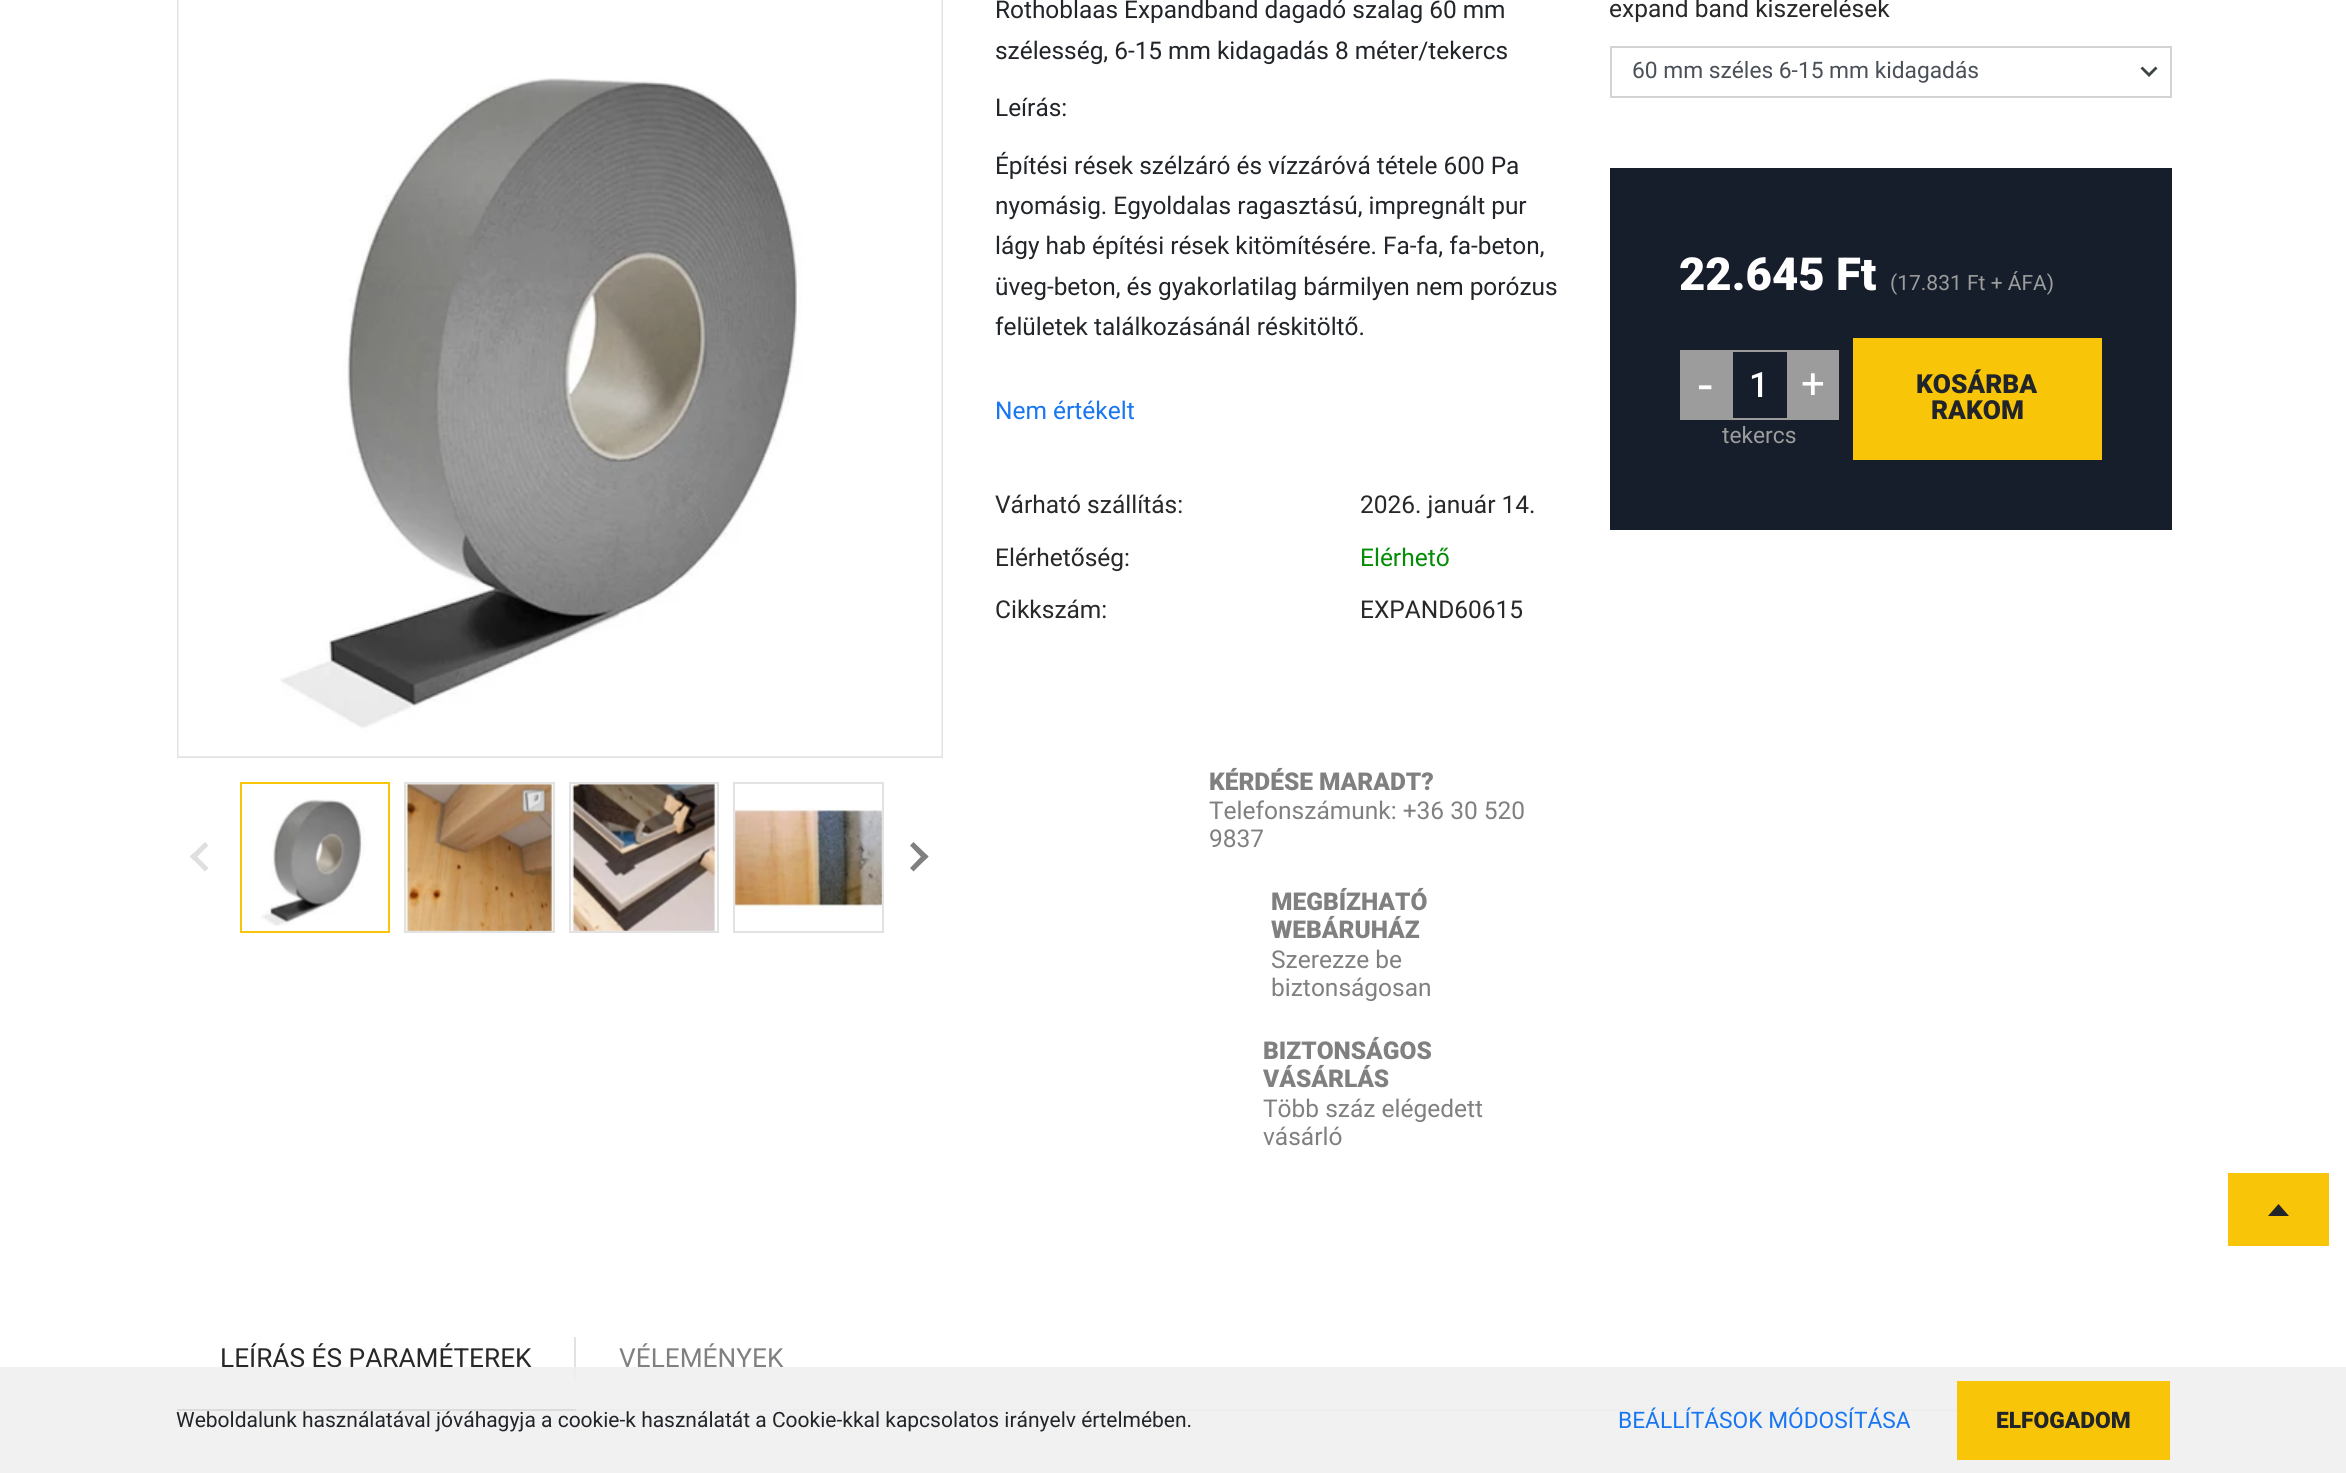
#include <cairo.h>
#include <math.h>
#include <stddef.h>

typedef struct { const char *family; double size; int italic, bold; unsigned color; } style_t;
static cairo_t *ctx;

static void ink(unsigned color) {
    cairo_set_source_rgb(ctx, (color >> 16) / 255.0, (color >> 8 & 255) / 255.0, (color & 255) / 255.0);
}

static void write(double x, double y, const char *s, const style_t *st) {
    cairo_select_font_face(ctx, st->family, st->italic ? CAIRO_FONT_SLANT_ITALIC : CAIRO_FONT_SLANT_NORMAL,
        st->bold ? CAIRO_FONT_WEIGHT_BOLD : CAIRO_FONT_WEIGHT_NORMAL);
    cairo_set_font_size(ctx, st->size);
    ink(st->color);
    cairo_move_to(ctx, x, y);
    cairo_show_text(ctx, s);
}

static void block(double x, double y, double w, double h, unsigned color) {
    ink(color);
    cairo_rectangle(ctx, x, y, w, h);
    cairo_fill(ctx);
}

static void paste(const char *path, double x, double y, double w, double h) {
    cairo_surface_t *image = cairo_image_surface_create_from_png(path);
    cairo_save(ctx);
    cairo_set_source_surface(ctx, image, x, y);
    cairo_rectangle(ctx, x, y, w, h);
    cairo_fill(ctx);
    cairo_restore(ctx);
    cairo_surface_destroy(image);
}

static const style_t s1 = {"Roboto", 24.4, 0, 0, 0x212529};
static const style_t s2 = {"Roboto", 24.5, 0, 0, 0x1876f2};
static const style_t s3 = {"Roboto", 24.5, 0, 0, 0x282729};
static const style_t s4 = {"Roboto", 24.5, 0, 0, 0x038d07};
static const style_t s5 = {"Roboto Black", 24.5, 0, 0, 0x808080};
static const style_t s6 = {"Roboto", 24.5, 0, 0, 0x808080};
static const style_t s7 = {"Roboto", 22.75, 0, 0, 0x495057};
static const style_t s8 = {"Roboto Black", 45.5, 0, 0, 0xffffff};
static const style_t s9 = {"Roboto", 21, 0, 0, 0x9c9c9c};
static const style_t s10 = {"Roboto", 52, 0, 0, 0xffffff};
static const style_t s11 = {"Roboto Medium", 35, 0, 0, 0xffffff};
static const style_t s12 = {"Roboto", 42, 0, 0, 0xffffff};
static const style_t s13 = {"Roboto", 22.75, 0, 0, 0x9c9c9c};
static const style_t s14 = {"Roboto Black", 26.25, 0, 0, 0x212529};
static const style_t s15 = {"Roboto", 26.25, 0, 0, 0x282729};
static const style_t s16 = {"Roboto", 26.25, 0, 0, 0x808080};
static const style_t s17 = {"Roboto", 21, 0, 0, 0x212529};
static const style_t s18 = {"Roboto", 22.75, 0, 0, 0x1876f2};
static const style_t s19 = {"Roboto Black", 22.75, 0, 0, 0x212529};

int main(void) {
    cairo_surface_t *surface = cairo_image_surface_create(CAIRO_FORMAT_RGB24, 2346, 1473);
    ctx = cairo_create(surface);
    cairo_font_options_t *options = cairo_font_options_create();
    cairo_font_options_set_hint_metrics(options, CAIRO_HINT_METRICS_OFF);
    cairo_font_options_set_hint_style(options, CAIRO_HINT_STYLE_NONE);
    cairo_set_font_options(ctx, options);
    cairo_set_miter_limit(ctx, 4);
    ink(0xffffff);
    cairo_paint(ctx);
    cairo_rectangle(ctx, 178, -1, 764, 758);
    ink(0xe2e2e2);
    cairo_stroke(ctx);
    paste("pic1.png", 178, 0, 764, 757);
    ink(0xdfdfdf);
    cairo_new_path(ctx);
    cairo_move_to(ctx, 190, 856.5);
    cairo_line_to(ctx, 205, 842);
    cairo_line_to(ctx, 208.5, 845.5);
    cairo_line_to(ctx, 193.5, 860.5);
    cairo_close_path(ctx);
    cairo_fill(ctx);
    cairo_new_path(ctx);
    cairo_move_to(ctx, 190, 856.5);
    cairo_line_to(ctx, 193.5, 853);
    cairo_line_to(ctx, 208.5, 868);
    cairo_line_to(ctx, 205, 871.5);
    cairo_close_path(ctx);
    cairo_fill(ctx);
    paste("pic2.png", 261, 799, 104, 127);
    cairo_rectangle(ctx, 241, 783, 148, 149);
    ink(0xf9c508);
    cairo_stroke(ctx);
    paste("pic3.png", 406, 784, 147, 147);
    cairo_rectangle(ctx, 405, 783, 149, 149);
    ink(0xe2e2e2);
    cairo_stroke(ctx);
    paste("pic4.png", 571, 784, 146, 147);
    cairo_rectangle(ctx, 570, 783, 148, 149);
    cairo_stroke(ctx);
    paste("pic5.png", 735, 808, 147, 104);
    cairo_rectangle(ctx, 734, 783, 149, 149);
    cairo_stroke(ctx);
    ink(0x808080);
    cairo_new_path(ctx);
    cairo_move_to(ctx, 910, 845.5);
    cairo_line_to(ctx, 913.5, 842);
    cairo_line_to(ctx, 928.5, 856.5);
    cairo_line_to(ctx, 924.5, 860.5);
    cairo_close_path(ctx);
    cairo_fill(ctx);
    cairo_new_path(ctx);
    cairo_move_to(ctx, 910, 868);
    cairo_line_to(ctx, 924.5, 853);
    cairo_line_to(ctx, 928.5, 856.5);
    cairo_line_to(ctx, 913.5, 871.5);
    cairo_close_path(ctx);
    cairo_fill(ctx);
    write(995, 18, "Rothoblaas Expandband dagadó szalag 60 mm", &s1);
    write(995, 59, "szélesség, 6-15 mm kidagadás 8 méter/tekercs", &s1);
    write(995, 116, "Leírás:", &s1);
    write(995, 174, "Építési rések szélzáró és vízzáróvá tétele 600 Pa", &s1);
    write(995, 214, "nyomásig. Egyoldalas ragasztású, impregnált pur", &s1);
    write(995, 254, "lágy hab építési rések kitömítésére. Fa-fa, fa-beton,", &s1);
    write(995, 295, "üveg-beton, és gyakorlatilag bármilyen nem porózus", &s1);
    write(995, 335, "felületek találkozásánál réskitöltő.", &s1);
    write(995, 419, "Nem értékelt", &s2);
    write(995, 513, "Várható szállítás:", &s3);
    write(1360, 513, "2026. január 14.", &s3);
    write(995, 566, "Elérhetőség:", &s3);
    write(1360, 566, "Elérhető", &s4);
    write(995, 618, "Cikkszám:", &s3);
    write(1360, 618, "EXPAND60615", &s3);
    write(1209, 790, "KÉRDÉSE MARADT?", &s5);
    write(1209, 819, "Telefonszámunk: +36 30 520", &s6);
    write(1209, 847, "9837", &s6);
    write(1271, 910, "MEGBÍZHATÓ", &s5);
    write(1271, 938, "WEBÁRUHÁZ", &s5);
    write(1271, 968, "Szerezze be", &s6);
    write(1271, 996, "biztonságosan", &s6);
    write(1263, 1059, "BIZTONSÁGOS", &s5);
    write(1263, 1087, "VÁSÁRLÁS", &s5);
    write(1263, 1117, "Több száz elégedett", &s6);
    write(1263, 1145, "vásárló", &s6);
    write(1609, 17, "expand band kiszerelések", &s3);
    ink(0x3f4547);
    cairo_new_path(ctx);
    cairo_move_to(ctx, 2155.5, 66.5);
    cairo_line_to(ctx, 2149, 73);
    cairo_line_to(ctx, 2142.5, 66.5);
    cairo_line_to(ctx, 2140.5, 68.5);
    cairo_line_to(ctx, 2149, 77);
    cairo_line_to(ctx, 2157.5, 68.5);
    cairo_close_path(ctx);
    cairo_fill(ctx);
    cairo_rectangle(ctx, 1611, 47, 560, 50);
    ink(0xd3d3d3);
    cairo_stroke(ctx);
    write(1632, 78, "60 mm széles 6-15 mm kidagadás", &s7);
    block(1610, 168, 562, 362, 0x161e2c);
    write(1679, 290, "22.645 Ft", &s8);
    write(1890, 290, "(17.831 Ft + ÁFA)", &s9);
    block(1680, 350, 159, 70, 0x9c9c9c);
    write(1698, 403, "-", &s10);
    block(1733, 352, 54, 66, 0x161e2c);
    write(1749, 397, "1", &s11);
    write(1801, 398, "+", &s12);
    write(1722, 443, "tekercs", &s13);
    block(1853, 338, 249, 122, 0xf9c508);
    write(1916, 393, "KOSÁRBA", &s14);
    write(1931, 419, "RAKOM", &s14);
    block(576, 1409, 1596, 2, 0xe2e2e2);
    block(177, 1409, 399, 2, 0x282729);
    write(220, 1367, "LEÍRÁS ÉS PARAMÉTEREK", &s15);
    block(574, 1337, 2, 44, 0xe2e2e2);
    write(619, 1367, "VÉLEMÉNYEK", &s16);
    block(2228, 1173, 101, 73, 0xf9c508);
    ink(0x212529);
    cairo_new_path(ctx);
    cairo_move_to(ctx, 2289, 1216);
    cairo_line_to(ctx, 2278.5, 1204);
    cairo_line_to(ctx, 2268, 1216);
    cairo_close_path(ctx);
    cairo_fill(ctx);
    cairo_set_source_rgba(ctx, 0.941, 0.941, 0.941, 0.9);
    cairo_rectangle(ctx, 0, 1367, 2346, 106);
    cairo_fill(ctx);
    write(176, 1427, "Weboldalunk használatával jóváhagyja a cookie-k használatát a Cookie-kkal kapcsolatos irányelv értelmében.", &s17);
    write(1618, 1428, "BEÁLLÍTÁSOK MÓDOSÍTÁSA", &s18);
    block(1957, 1381, 213, 79, 0xf9c508);
    write(1996, 1428, "ELFOGADOM", &s19);
    cairo_surface_write_to_png(surface, "screenshot.png");
    cairo_font_options_destroy(options);
    cairo_destroy(ctx);
    cairo_surface_destroy(surface);
    return 0;
}
